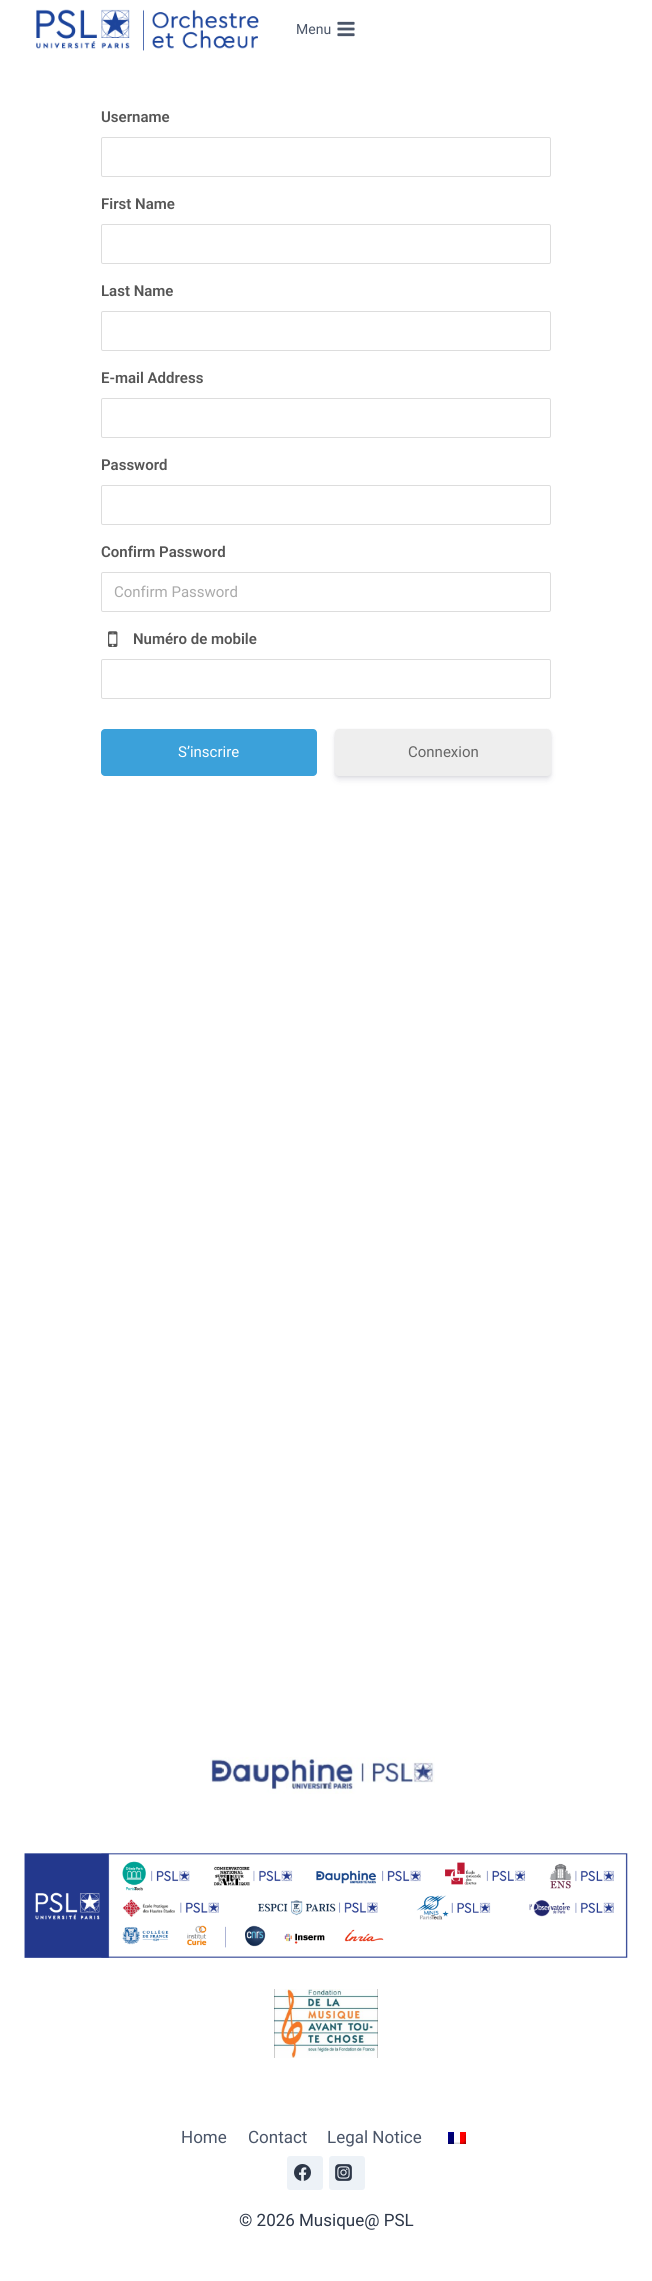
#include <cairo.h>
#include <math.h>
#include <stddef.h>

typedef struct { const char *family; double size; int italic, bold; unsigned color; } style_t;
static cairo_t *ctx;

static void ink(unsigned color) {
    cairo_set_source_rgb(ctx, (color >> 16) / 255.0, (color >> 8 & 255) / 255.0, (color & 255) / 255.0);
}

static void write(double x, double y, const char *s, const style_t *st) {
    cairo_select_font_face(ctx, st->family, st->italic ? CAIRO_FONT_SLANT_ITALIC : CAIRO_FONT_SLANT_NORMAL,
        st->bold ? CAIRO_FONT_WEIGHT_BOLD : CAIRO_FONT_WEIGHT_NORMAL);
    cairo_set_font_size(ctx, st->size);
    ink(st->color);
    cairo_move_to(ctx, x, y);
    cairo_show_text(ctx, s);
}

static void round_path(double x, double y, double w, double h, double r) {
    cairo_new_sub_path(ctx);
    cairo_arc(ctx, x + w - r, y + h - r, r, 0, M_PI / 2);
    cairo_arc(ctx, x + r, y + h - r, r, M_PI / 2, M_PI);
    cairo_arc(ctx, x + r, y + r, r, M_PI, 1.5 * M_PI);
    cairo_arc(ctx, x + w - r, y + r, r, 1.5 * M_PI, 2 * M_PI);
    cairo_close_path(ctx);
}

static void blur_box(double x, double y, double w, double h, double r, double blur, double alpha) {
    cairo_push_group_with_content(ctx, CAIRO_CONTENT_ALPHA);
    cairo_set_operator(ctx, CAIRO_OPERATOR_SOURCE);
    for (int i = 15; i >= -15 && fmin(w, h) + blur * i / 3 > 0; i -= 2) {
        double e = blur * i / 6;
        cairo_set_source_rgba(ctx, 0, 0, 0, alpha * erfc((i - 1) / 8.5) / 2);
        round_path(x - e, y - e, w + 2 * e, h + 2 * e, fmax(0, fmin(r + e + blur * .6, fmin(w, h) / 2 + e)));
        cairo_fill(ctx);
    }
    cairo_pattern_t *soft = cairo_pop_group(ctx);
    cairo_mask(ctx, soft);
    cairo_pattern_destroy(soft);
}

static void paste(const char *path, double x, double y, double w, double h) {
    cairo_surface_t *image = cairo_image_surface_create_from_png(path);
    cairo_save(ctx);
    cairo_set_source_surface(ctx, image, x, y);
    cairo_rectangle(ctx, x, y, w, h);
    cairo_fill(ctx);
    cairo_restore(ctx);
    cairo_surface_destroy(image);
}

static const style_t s1 = {"Roboto", 14, 0, 0, 0x4a5568};
static const style_t s2 = {"Roboto SemiBold", 15, 0, 0, 0x555555};
static const style_t s3 = {"Roboto", 15, 0, 0, 0xaaaaaa};
static const style_t s4 = {"Roboto", 15, 0, 0, 0xffffff};
static const style_t s5 = {"Roboto", 15, 0, 0, 0x666666};
static const style_t s6 = {"Roboto", 17, 0, 0, 0x4a5568};
static const style_t s7 = {"Roboto", 17, 0, 0, 0x2d3748};

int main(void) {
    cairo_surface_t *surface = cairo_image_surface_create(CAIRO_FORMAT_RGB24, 652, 2281);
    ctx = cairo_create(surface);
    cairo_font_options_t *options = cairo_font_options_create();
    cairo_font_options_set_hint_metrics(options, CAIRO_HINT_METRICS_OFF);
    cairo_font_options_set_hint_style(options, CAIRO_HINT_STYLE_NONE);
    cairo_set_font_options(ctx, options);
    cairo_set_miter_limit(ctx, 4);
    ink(0xffffff);
    cairo_paint(ctx);
    paste("pic1.png", 36, 9, 223, 42);
    write(296, 34, "Menu", &s1);
    paste("pic2.png", 337, 21, 18, 16);
    write(101, 122, "Username", &s2);
    round_path(101.5, 137.5, 449, 39, 1.5);
    ink(0xdddddd);
    cairo_set_line_width(ctx, 1);
    cairo_stroke(ctx);
    write(101, 209, "First Name", &s2);
    round_path(101.5, 224.5, 449, 39, 1.5);
    ink(0xdddddd);
    cairo_stroke(ctx);
    write(101, 296, "Last Name", &s2);
    round_path(101.5, 311.5, 449, 39, 1.5);
    ink(0xdddddd);
    cairo_stroke(ctx);
    write(101, 383, "E-mail Address", &s2);
    round_path(101.5, 398.5, 449, 39, 1.5);
    ink(0xdddddd);
    cairo_stroke(ctx);
    write(101, 470, "Password", &s2);
    round_path(101.5, 485.5, 449, 39, 1.5);
    ink(0xdddddd);
    cairo_stroke(ctx);
    write(101, 557, "Confirm Password", &s2);
    round_path(101.5, 572.5, 449, 39, 1.5);
    ink(0xdddddd);
    cairo_stroke(ctx);
    write(114, 597, "Confirm Password", &s3);
    paste("pic3.png", 108, 631, 10, 16);
    write(133, 644, "Numéro de mobile", &s2);
    round_path(101.5, 659.5, 449, 39, 1.5);
    ink(0xdddddd);
    cairo_stroke(ctx);
    ink(0x3ba1da);
    round_path(101, 729, 216, 47, 4);
    cairo_fill(ctx);
    write(178, 757, "S’inscrire", &s4);
    ink(0x000000);
    blur_box(335, 730, 216, 47, 4, 1.5, 0.08);
    ink(0x32325d);
    blur_box(335, 733, 216, 47, 4, 3, 0.11);
    ink(0xeeeeee);
    round_path(335, 729, 216, 47, 4);
    cairo_fill(ctx);
    write(408, 757, "Connexion", &s5);
    paste("pic4.png", 210, 1757, 225, 37);
    paste("pic5.png", 24, 1853, 604, 105);
    paste("pic6.png", 274, 1989, 104, 69);
    write(181, 2143, "Home", &s6);
    write(248, 2143, "Contact", &s6);
    write(327, 2143, "Legal Notice", &s6);
    paste("pic7.png", 448, 2132, 18, 12);
    ink(0xedf2f7);
    round_path(287, 2156, 36, 34, 3);
    cairo_fill(ctx);
    paste("pic8.png", 294, 2164, 17, 17);
    round_path(329, 2156, 36, 34, 3);
    cairo_fill(ctx);
    paste("pic9.png", 335, 2164, 17, 17);
    write(239, 2226, "© 2026 Musique@ PSL", &s7);
    cairo_surface_write_to_png(surface, "screenshot.png");
    cairo_font_options_destroy(options);
    cairo_destroy(ctx);
    cairo_surface_destroy(surface);
    return 0;
}
